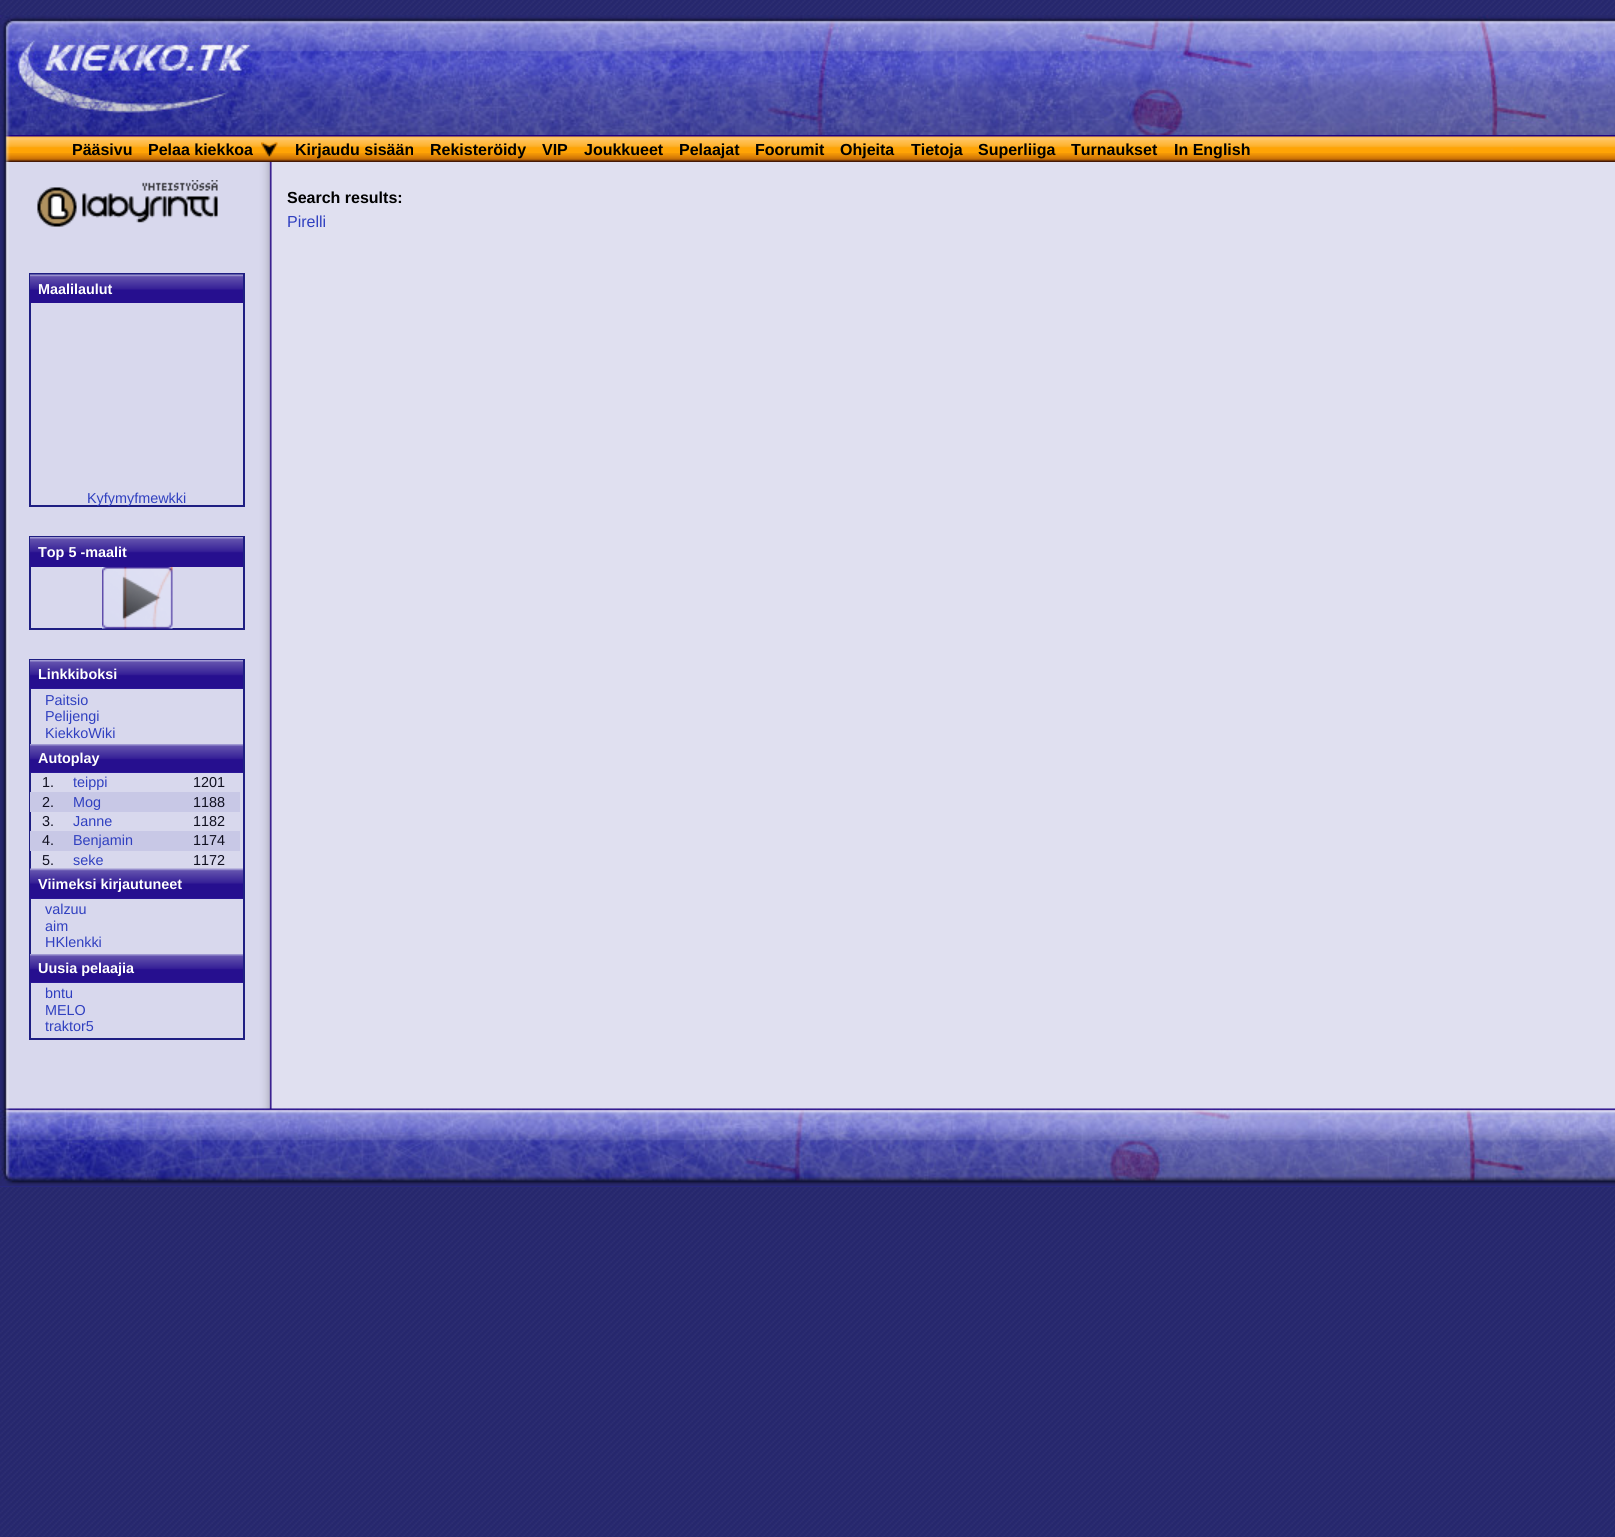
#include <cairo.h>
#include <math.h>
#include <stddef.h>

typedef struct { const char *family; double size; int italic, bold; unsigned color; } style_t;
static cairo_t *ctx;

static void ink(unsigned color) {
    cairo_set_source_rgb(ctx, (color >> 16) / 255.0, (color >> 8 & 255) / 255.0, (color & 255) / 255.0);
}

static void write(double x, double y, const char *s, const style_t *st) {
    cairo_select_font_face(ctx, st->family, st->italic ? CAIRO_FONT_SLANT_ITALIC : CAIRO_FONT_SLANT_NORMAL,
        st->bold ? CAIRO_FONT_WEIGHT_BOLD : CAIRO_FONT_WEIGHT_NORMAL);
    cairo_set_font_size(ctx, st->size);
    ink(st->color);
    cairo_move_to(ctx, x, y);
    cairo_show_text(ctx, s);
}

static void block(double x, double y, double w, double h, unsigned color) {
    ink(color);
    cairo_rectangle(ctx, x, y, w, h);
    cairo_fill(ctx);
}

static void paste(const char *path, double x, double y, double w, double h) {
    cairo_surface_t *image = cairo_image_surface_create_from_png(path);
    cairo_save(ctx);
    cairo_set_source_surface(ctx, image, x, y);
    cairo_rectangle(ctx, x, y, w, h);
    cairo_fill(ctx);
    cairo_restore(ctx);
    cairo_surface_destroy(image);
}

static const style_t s1 = {"Liberation Sans", 16, 0, 1, 0x000000};
static const style_t s2 = {"Liberation Sans", 16, 0, 0, 0x3040c0};
static const style_t s3 = {"Liberation Sans", 14.4, 0, 1, 0xffffff};
static const style_t s4 = {"Liberation Sans", 14.4, 0, 0, 0x3040c0};
static const style_t s5 = {"Liberation Sans", 14.4, 0, 0, 0x101020};

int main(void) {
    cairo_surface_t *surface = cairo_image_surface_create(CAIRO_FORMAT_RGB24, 1615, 1537);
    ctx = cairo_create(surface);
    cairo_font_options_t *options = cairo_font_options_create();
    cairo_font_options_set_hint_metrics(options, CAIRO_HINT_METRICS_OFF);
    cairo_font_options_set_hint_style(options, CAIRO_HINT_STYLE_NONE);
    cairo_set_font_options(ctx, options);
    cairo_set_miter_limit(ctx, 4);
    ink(0xffffff);
    cairo_paint(ctx);
    paste("pic1.png", 0, 0, 1615, 1537);
    paste("pic2.png", 0, 162, 1615, 947);
    paste("pic3.png", 0, 15, 1615, 120);
    paste("pic4.png", 0, 135, 1615, 27);
    paste("pic5.png", 5, 153, 1610, 9);
    write(72, 155, "Pääsivu", &s1);
    write(148, 155, "Pelaa kiekkoa", &s1);
    paste("pic6.png", 261, 142, 17, 15);
    write(295, 155, "Kirjaudu sisään", &s1);
    write(430, 155, "Rekisteröidy", &s1);
    write(542, 155, "VIP", &s1);
    write(584, 155, "Joukkueet", &s1);
    write(679, 155, "Pelaajat", &s1);
    write(755, 155, "Foorumit", &s1);
    write(840, 155, "Ohjeita", &s1);
    write(911, 155, "Tietoja", &s1);
    write(978, 155, "Superliiga", &s1);
    write(1071, 155, "Turnaukset", &s1);
    write(1174, 155, "In English", &s1);
    write(287, 203, "Search results:", &s1);
    write(287, 227, "Pirelli", &s2);
    paste("pic7.png", 37, 180, 181, 47);
    cairo_rectangle(ctx, 30, 274, 214, 232);
    ink(0x1e1e82);
    cairo_stroke(ctx);
    paste("pic8.png", 30, 274, 213, 29);
    write(38, 294, "Maalilaulut", &s3);
    write(87, 503, "Kyfymyfmewkki", &s4);
    cairo_rectangle(ctx, 30, 537, 214, 92);
    ink(0x1e1e82);
    cairo_stroke(ctx);
    paste("pic9.png", 30, 537, 213, 30);
    write(38, 557, "Top 5 -maalit", &s3);
    paste("pic10.png", 102, 567, 71, 62);
    cairo_rectangle(ctx, 30, 660, 214, 379);
    ink(0x1e1e82);
    cairo_stroke(ctx);
    block(30, 688, 213, 1, 0x30219f);
    paste("pic11.png", 30, 660, 213, 29);
    write(38, 679, "Linkkiboksi", &s3);
    write(45, 705, "Paitsio", &s4);
    write(45, 721, "Pelijengi", &s4);
    write(45, 738, "KiekkoWiki", &s4);
    block(30, 772, 213, 1, 0x30219f);
    paste("pic11.png", 30, 744, 213, 29);
    write(38, 763, "Autoplay", &s3);
    write(42, 787, "1.", &s5);
    write(73, 787, "teippi", &s4);
    write(193, 787, "1201", &s5);
    block(30, 792, 210, 20, 0xc8c8e6);
    write(42, 807, "2.", &s5);
    write(73, 807, "Mog", &s4);
    write(193, 807, "1188", &s5);
    write(42, 826, "3.", &s5);
    write(73, 826, "Janne", &s4);
    write(193, 826, "1182", &s5);
    block(30, 831, 210, 20, 0xc8c8e6);
    write(42, 845, "4.", &s5);
    write(73, 845, "Benjamin", &s4);
    write(193, 845, "1174", &s5);
    write(42, 865, "5.", &s5);
    write(73, 865, "seke", &s4);
    write(193, 865, "1172", &s5);
    block(30, 898, 213, 1, 0x30219f);
    paste("pic12.png", 30, 868, 213, 31);
    write(38, 889, "Viimeksi kirjautuneet", &s3);
    write(45, 914, "valzuu", &s4);
    write(45, 931, "aim", &s4);
    write(45, 947, "HKlenkki", &s4);
    block(30, 982, 213, 1, 0x30219f);
    paste("pic11.png", 30, 954, 213, 29);
    write(38, 973, "Uusia pelaajia", &s3);
    write(45, 998, "bntu", &s4);
    write(45, 1015, "MELO", &s4);
    write(45, 1031, "traktor5", &s4);
    block(0, 1186, 1615, 1, 0x28288c);
    paste("pic13.png", 0, 1108, 1615, 79);
    cairo_surface_write_to_png(surface, "screenshot.png");
    cairo_font_options_destroy(options);
    cairo_destroy(ctx);
    cairo_surface_destroy(surface);
    return 0;
}
